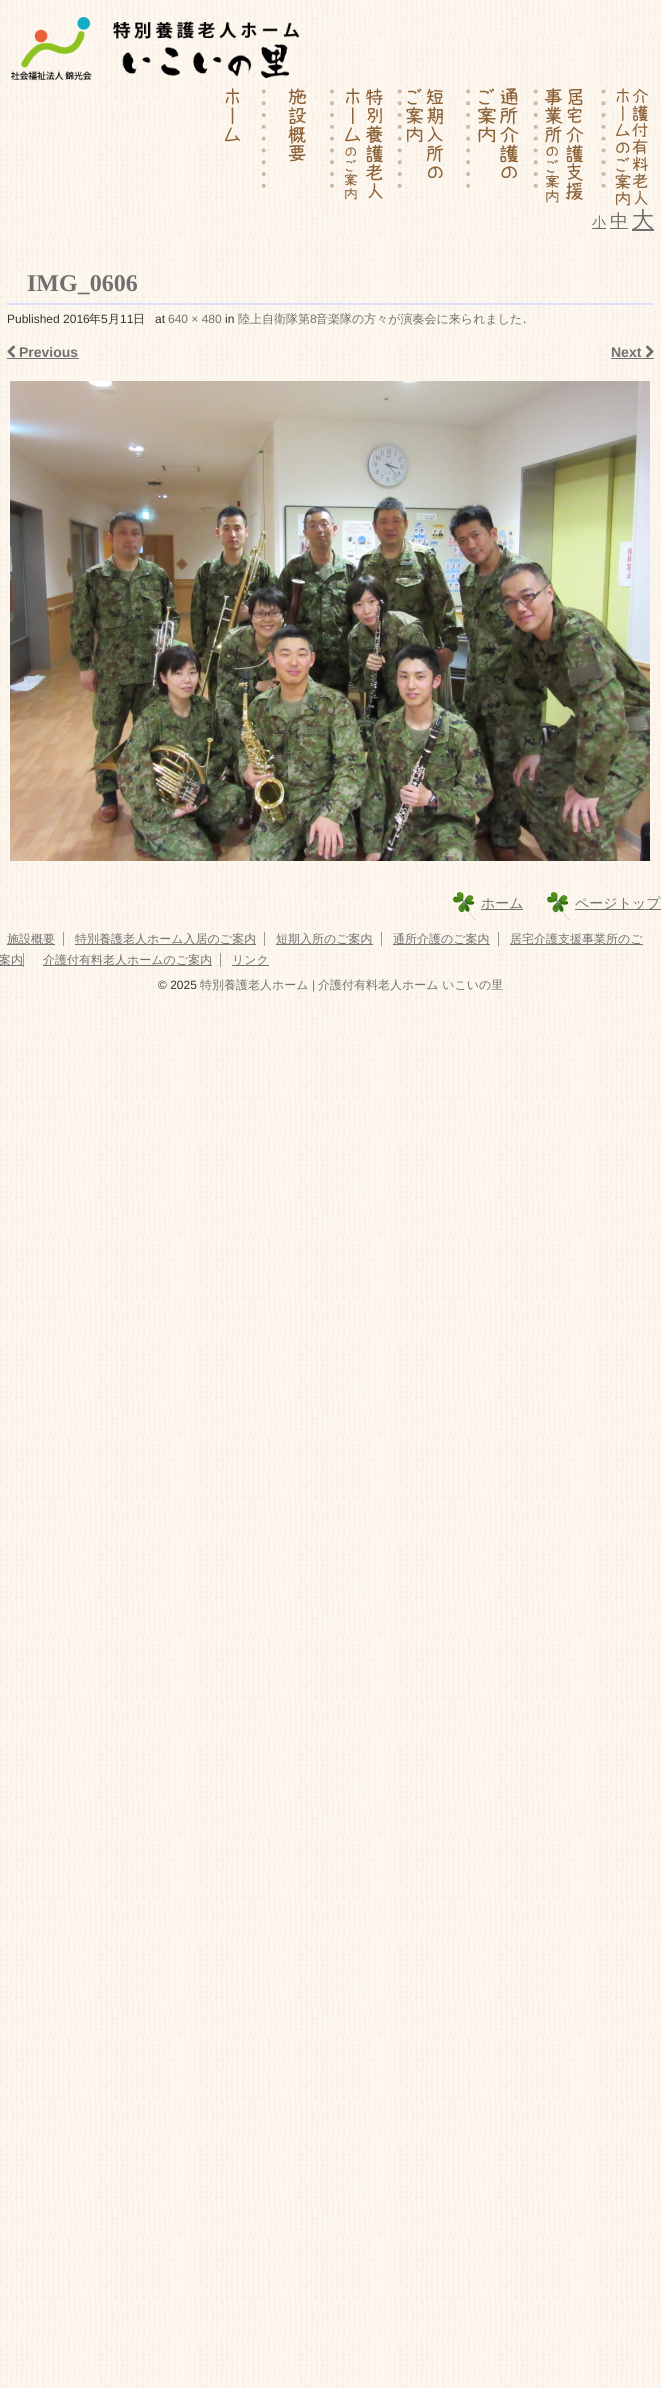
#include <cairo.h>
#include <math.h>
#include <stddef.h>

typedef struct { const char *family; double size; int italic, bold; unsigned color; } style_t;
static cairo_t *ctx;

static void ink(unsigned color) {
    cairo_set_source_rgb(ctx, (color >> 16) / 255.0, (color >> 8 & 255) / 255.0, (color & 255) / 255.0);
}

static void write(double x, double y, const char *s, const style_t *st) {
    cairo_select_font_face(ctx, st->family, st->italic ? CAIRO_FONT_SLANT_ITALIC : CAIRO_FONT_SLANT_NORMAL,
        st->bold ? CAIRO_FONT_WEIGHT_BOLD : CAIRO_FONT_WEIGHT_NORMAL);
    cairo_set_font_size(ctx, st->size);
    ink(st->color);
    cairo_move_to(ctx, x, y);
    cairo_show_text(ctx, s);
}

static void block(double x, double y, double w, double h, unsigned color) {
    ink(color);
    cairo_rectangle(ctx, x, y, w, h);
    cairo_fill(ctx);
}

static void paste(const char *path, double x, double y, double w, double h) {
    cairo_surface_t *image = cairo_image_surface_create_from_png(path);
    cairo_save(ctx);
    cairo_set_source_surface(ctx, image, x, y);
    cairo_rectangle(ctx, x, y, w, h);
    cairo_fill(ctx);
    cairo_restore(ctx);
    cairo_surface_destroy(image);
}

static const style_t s1 = {"WenQuanYi Zen Hei Medium", 14, 0, 0, 0x717071};
static const style_t s2 = {"WenQuanYi Zen Hei Medium", 18, 0, 0, 0x717071};
static const style_t s3 = {"WenQuanYi Zen Hei Medium", 22, 0, 0, 0x717071};
static const style_t s4 = {"Liberation Serif", 24, 0, 1, 0x717071};
static const style_t s5 = {"Liberation Sans", 12, 0, 0, 0x333333};
static const style_t s6 = {"WenQuanYi Zen Hei Medium", 12, 0, 0, 0x333333};
static const style_t s7 = {"Liberation Sans", 12, 0, 0, 0x717071};
static const style_t s8 = {"WenQuanYi Zen Hei Medium", 12, 0, 0, 0x717071};
static const style_t s9 = {"Liberation Sans", 14, 0, 1, 0x717071};

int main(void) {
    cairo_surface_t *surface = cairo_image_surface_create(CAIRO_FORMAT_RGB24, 661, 2388);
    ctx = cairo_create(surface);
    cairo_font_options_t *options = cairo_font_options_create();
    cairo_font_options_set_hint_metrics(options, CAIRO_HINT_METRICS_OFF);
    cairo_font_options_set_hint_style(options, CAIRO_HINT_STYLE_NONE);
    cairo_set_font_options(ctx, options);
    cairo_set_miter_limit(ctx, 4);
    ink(0xffffff);
    cairo_paint(ctx);
    paste("pic1.png", 0, 0, 661, 2388);
    paste("pic2.png", 11, 17, 289, 64);
    paste("pic3.png", 225, 88, 41, 100);
    paste("pic4.png", 288, 88, 46, 100);
    paste("pic5.png", 345, 88, 57, 112);
    paste("pic6.png", 406, 88, 64, 100);
    paste("pic7.png", 478, 88, 60, 100);
    paste("pic8.png", 544, 88, 62, 115);
    paste("pic9.png", 615, 88, 33, 118);
    block(592, 228, 14, 1, 0x717071);
    write(592, 227, "小", &s1);
    block(610, 228, 18, 1, 0x717071);
    write(610, 227, "中", &s2);
    block(632, 229, 22, 2, 0x717071);
    write(632, 227, "大", &s3);
    block(7, 303, 647, 2, 0xdedeff);
    write(27, 291, "IMG_0606", &s4);
    write(7, 323, "Published 2016", &s5);
    write(89, 323, "年", &s6);
    write(101, 323, "5", &s5);
    write(108, 323, "月", &s6);
    write(120, 323, "11", &s5);
    write(133, 323, "日", &s6);
    write(155, 323, "at", &s5);
    write(168, 323, "640 × 480", &s7);
    write(225, 323, "in", &s5);
    write(238, 323, "陸上自衛隊第", &s8);
    write(310, 323, "8", &s7);
    write(316, 323, "音楽隊の方々が演奏会に来られました", &s8);
    write(523, 323, ".", &s5);
    block(7, 358, 72, 1, 0x717071);
    paste("pic10.png", 7, 345, 8, 13);
    write(19, 357, "Previous", &s9);
    write(611, 357, "Next", &s9);
    block(611, 358, 43, 1, 0x717071);
    paste("pic11.png", 646, 345, 8, 13);
    paste("pic12.png", 10, 381, 640, 480);
    paste("pic13.png", 453, 892, 23, 28);
    block(481, 909, 42, 1, 0x717071);
    write(481, 908, "ホーム", &s1);
    paste("pic14.png", 547, 892, 23, 28);
    block(575, 909, 86, 1, 0x717071);
    write(575, 908, "ページトップ", &s1);
    block(7, 944, 48, 1, 0x717071);
    write(7, 943, "施設概要", &s8);
    block(63, 932, 1, 14, 0x999999);
    block(75, 944, 181, 1, 0x717071);
    write(75, 943, "特別養護老人ホーム入居のご案内", &s8);
    block(264, 932, 1, 14, 0x999999);
    block(276, 944, 97, 1, 0x717071);
    write(276, 943, "短期入所のご案内", &s8);
    block(381, 932, 1, 14, 0x999999);
    block(393, 944, 97, 1, 0x717071);
    write(393, 943, "通所介護のご案内", &s8);
    block(498, 932, 1, 14, 0x999999);
    block(510, 944, 133, 1, 0x717071);
    write(510, 943, "居宅介護支援事業所のご", &s8);
    block(0, 965, 23, 1, 0x717071);
    write(-1, 964, "案内", &s8);
    block(23, 953, 1, 14, 0x999999);
    block(43, 965, 169, 1, 0x717071);
    write(43, 964, "介護付有料老人ホームのご案内", &s8);
    block(220, 953, 1, 14, 0x999999);
    block(232, 965, 37, 1, 0x717071);
    write(232, 964, "リンク", &s8);
    write(158, 989, "© 2025", &s5);
    write(200, 989, "特別養護老人ホーム", &s8);
    write(312, 989, "|", &s7);
    write(318, 989, "介護付有料老人ホーム いこいの里", &s8);
    cairo_surface_write_to_png(surface, "screenshot.png");
    cairo_font_options_destroy(options);
    cairo_destroy(ctx);
    cairo_surface_destroy(surface);
    return 0;
}
